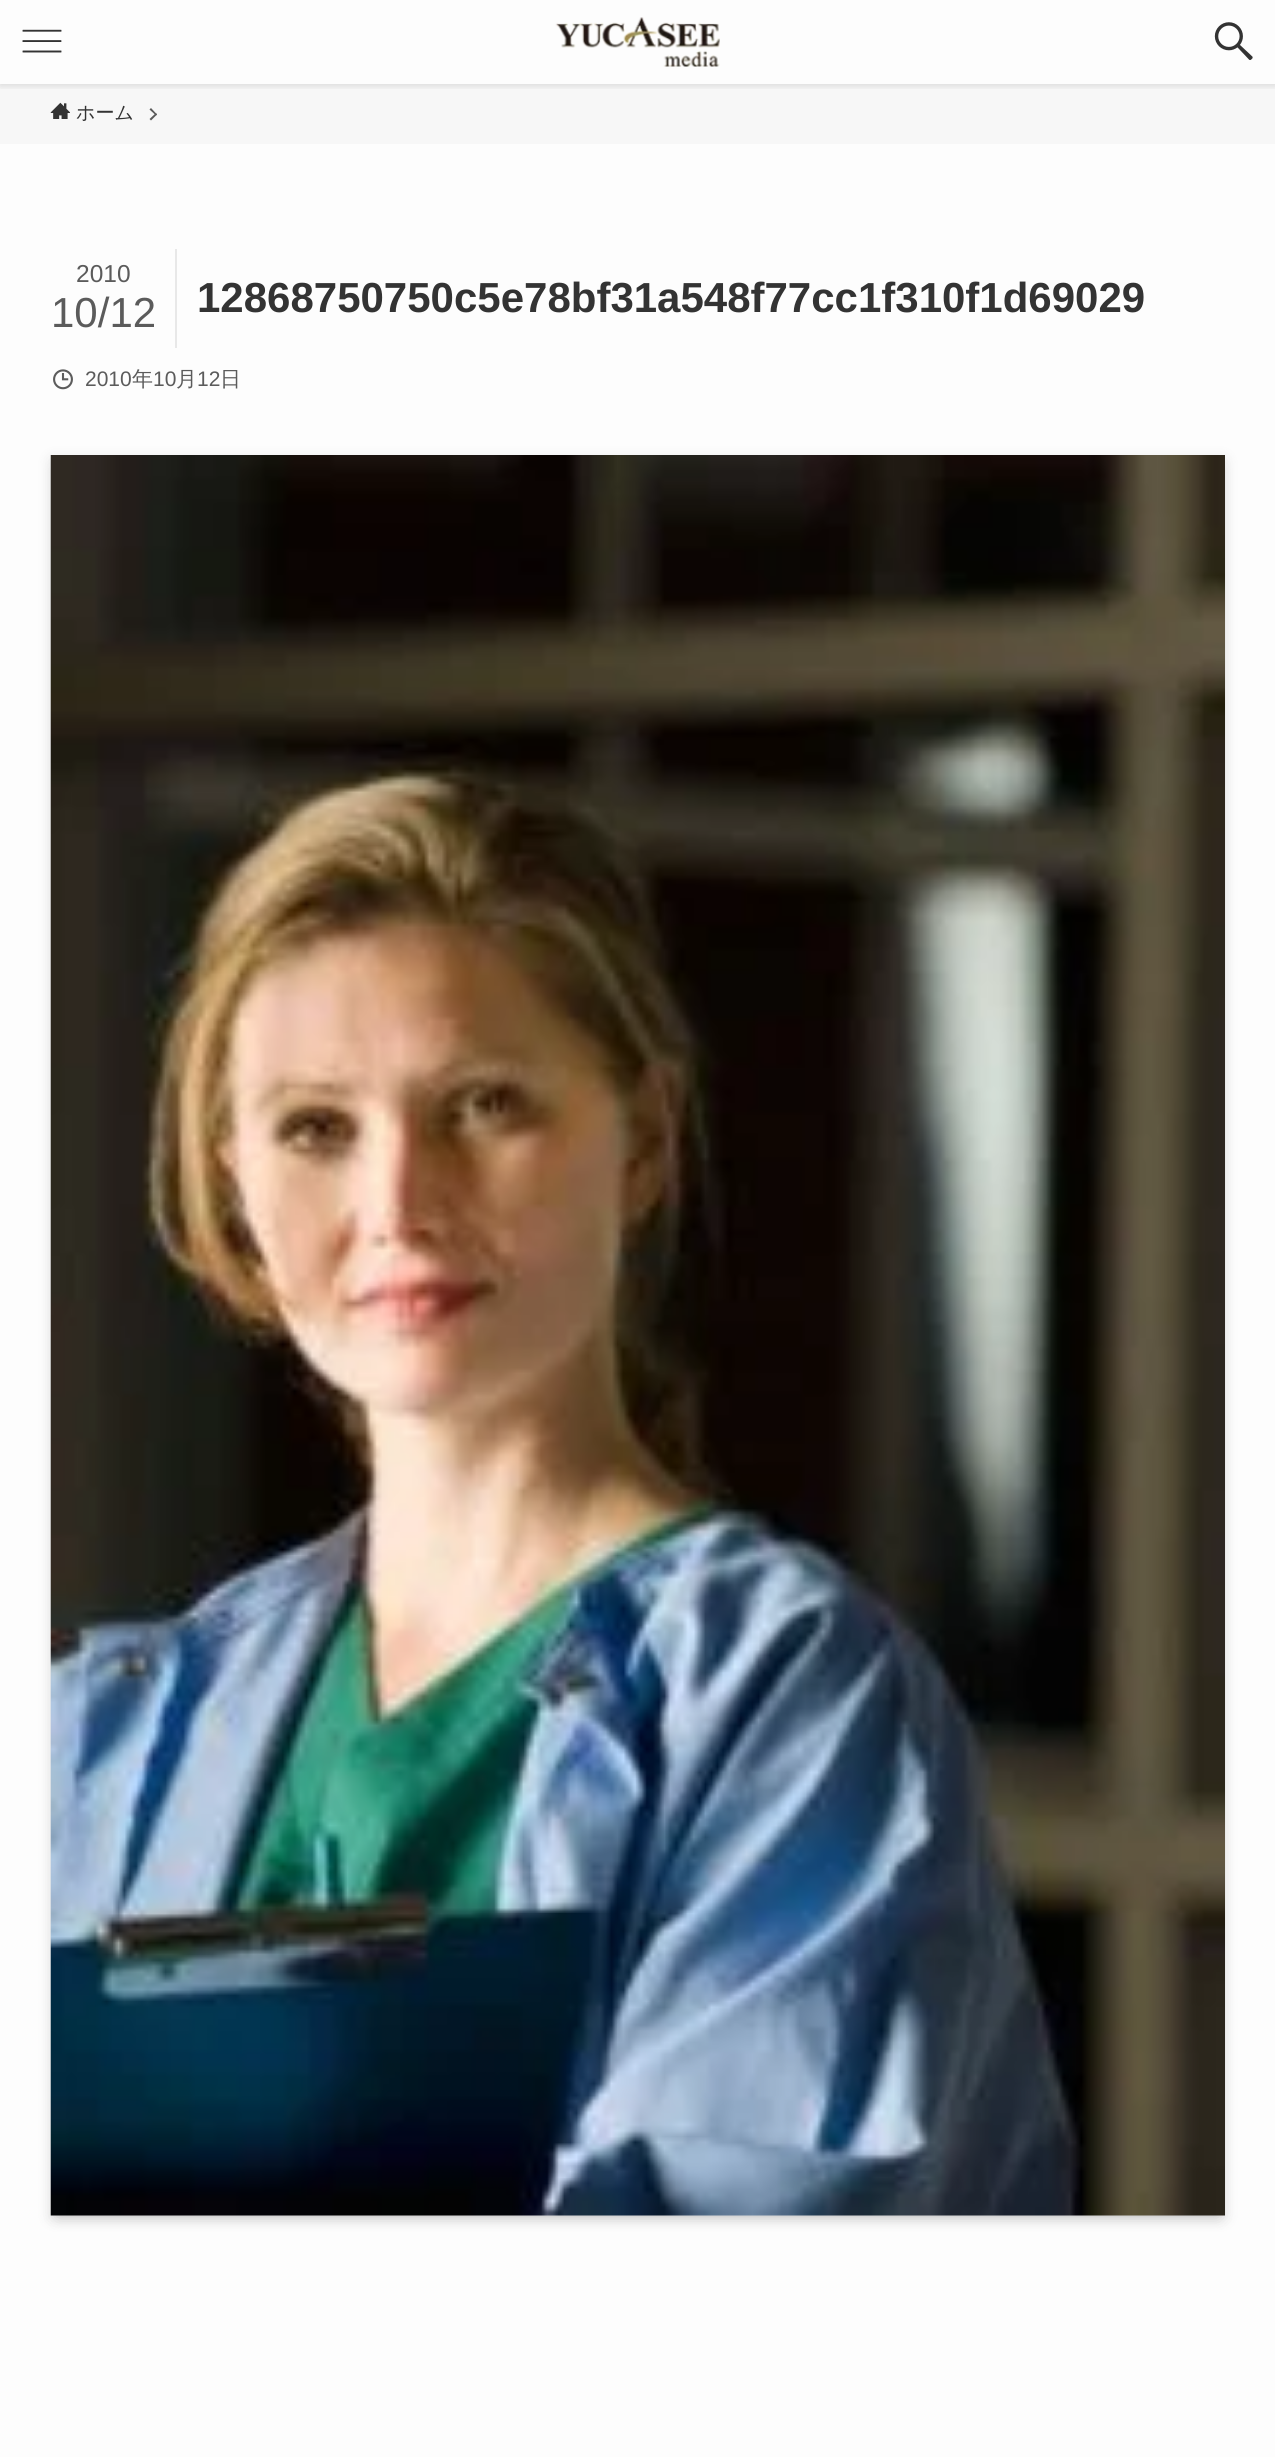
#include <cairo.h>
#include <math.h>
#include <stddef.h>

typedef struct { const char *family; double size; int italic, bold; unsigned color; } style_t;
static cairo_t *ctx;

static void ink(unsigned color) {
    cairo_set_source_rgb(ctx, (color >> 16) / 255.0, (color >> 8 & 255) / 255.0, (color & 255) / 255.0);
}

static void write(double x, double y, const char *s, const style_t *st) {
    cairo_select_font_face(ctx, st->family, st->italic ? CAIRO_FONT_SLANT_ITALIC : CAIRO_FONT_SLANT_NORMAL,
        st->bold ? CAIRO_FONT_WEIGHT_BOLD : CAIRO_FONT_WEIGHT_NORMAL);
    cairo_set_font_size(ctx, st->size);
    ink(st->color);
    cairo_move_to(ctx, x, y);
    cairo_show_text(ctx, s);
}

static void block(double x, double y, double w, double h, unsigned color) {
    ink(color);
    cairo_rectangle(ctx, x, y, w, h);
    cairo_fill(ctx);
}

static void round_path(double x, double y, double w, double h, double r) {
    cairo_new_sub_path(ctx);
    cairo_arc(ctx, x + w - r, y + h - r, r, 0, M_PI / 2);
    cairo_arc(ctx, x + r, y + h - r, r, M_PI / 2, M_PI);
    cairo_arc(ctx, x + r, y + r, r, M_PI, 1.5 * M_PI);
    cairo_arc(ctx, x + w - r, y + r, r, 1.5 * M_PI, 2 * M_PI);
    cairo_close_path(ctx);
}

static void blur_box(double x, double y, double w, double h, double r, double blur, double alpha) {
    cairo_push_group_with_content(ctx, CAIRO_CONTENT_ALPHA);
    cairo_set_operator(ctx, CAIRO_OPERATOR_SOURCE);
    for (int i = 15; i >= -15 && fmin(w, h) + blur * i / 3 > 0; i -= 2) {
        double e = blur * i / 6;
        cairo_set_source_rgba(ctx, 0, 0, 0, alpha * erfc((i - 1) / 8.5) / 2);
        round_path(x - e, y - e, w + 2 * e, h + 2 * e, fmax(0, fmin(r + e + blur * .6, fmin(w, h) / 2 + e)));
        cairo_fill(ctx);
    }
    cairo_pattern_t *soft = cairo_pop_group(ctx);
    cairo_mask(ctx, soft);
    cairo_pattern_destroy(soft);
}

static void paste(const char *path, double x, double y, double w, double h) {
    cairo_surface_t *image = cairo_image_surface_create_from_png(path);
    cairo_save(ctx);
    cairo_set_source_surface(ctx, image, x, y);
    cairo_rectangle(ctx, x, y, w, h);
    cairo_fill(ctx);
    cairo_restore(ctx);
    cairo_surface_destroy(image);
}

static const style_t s1 = {"WenQuanYi Zen Hei Medium", 19, 0, 0, 0x333333};
static const style_t s2 = {"Liberation Sans", 24.5, 0, 0, 0x5b5b5b};
static const style_t s3 = {"Liberation Sans", 42, 0, 0, 0x5b5b5b};
static const style_t s4 = {"Liberation Sans", 42, 0, 1, 0x333333};
static const style_t s5 = {"Liberation Sans", 21, 0, 0, 0x5b5b5b};
static const style_t s6 = {"WenQuanYi Zen Hei Medium", 21, 0, 0, 0x5b5b5b};

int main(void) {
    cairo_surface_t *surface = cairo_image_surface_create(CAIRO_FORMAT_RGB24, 1275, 2457);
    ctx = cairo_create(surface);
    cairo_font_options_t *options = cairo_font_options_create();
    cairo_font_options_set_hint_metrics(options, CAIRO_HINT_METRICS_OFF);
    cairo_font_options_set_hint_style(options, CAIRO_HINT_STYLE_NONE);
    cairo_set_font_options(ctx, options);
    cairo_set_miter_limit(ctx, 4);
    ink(0xfdfdfd);
    cairo_paint(ctx);
    block(0, 84, 1275, 60, 0xf7f7f7);
    cairo_save(ctx);
    cairo_rectangle(ctx, 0, 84, 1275, 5);
    cairo_clip(ctx);
    ink(0x000000);
    blur_box(0, 2, 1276, 84, 0, 3.5, 0.12);
    cairo_restore(ctx);
    paste("pic1.png", 22, 29, 40, 24);
    paste("pic2.png", 555, 17, 165, 50);
    paste("pic3.png", 1214, 22, 39, 38);
    paste("pic4.png", 50, 102, 20, 17);
    write(76, 119, "ホーム", &s1);
    ink(0x5a5a5a);
    cairo_new_path(ctx);
    cairo_move_to(ctx, 151, 108);
    cairo_line_to(ctx, 157, 114.5);
    cairo_line_to(ctx, 156, 115.5);
    cairo_line_to(ctx, 149.5, 109.5);
    cairo_close_path(ctx);
    cairo_fill(ctx);
    cairo_new_path(ctx);
    cairo_move_to(ctx, 156, 113);
    cairo_line_to(ctx, 157, 114.5);
    cairo_line_to(ctx, 151, 120.5);
    cairo_line_to(ctx, 149.5, 119);
    cairo_close_path(ctx);
    cairo_fill(ctx);
    block(175, 249, 2, 99, 0xe8e8e8);
    write(76, 282, "2010", &s2);
    write(51, 327, "10/12", &s3);
    write(197, 312, "12868750750c5e78bf31a548f77cc1f310f1d69029", &s4);
    paste("pic5.png", 53, 369, 20, 21);
    write(85, 386, "2010", &s5);
    write(132, 386, "年", &s6);
    write(153, 386, "10", &s5);
    write(176, 386, "月", &s6);
    write(197, 386, "12", &s5);
    write(220, 386, "日", &s6);
    ink(0x000000);
    blur_box(58, 469, 1160, 1747, 0, 7, 0.2);
    blur_box(51, 459, 1174, 1760, 0, 7, 0.1);
    paste("pic6.png", 50, 455, 1175, 1761);
    cairo_surface_write_to_png(surface, "screenshot.png");
    cairo_font_options_destroy(options);
    cairo_destroy(ctx);
    cairo_surface_destroy(surface);
    return 0;
}
